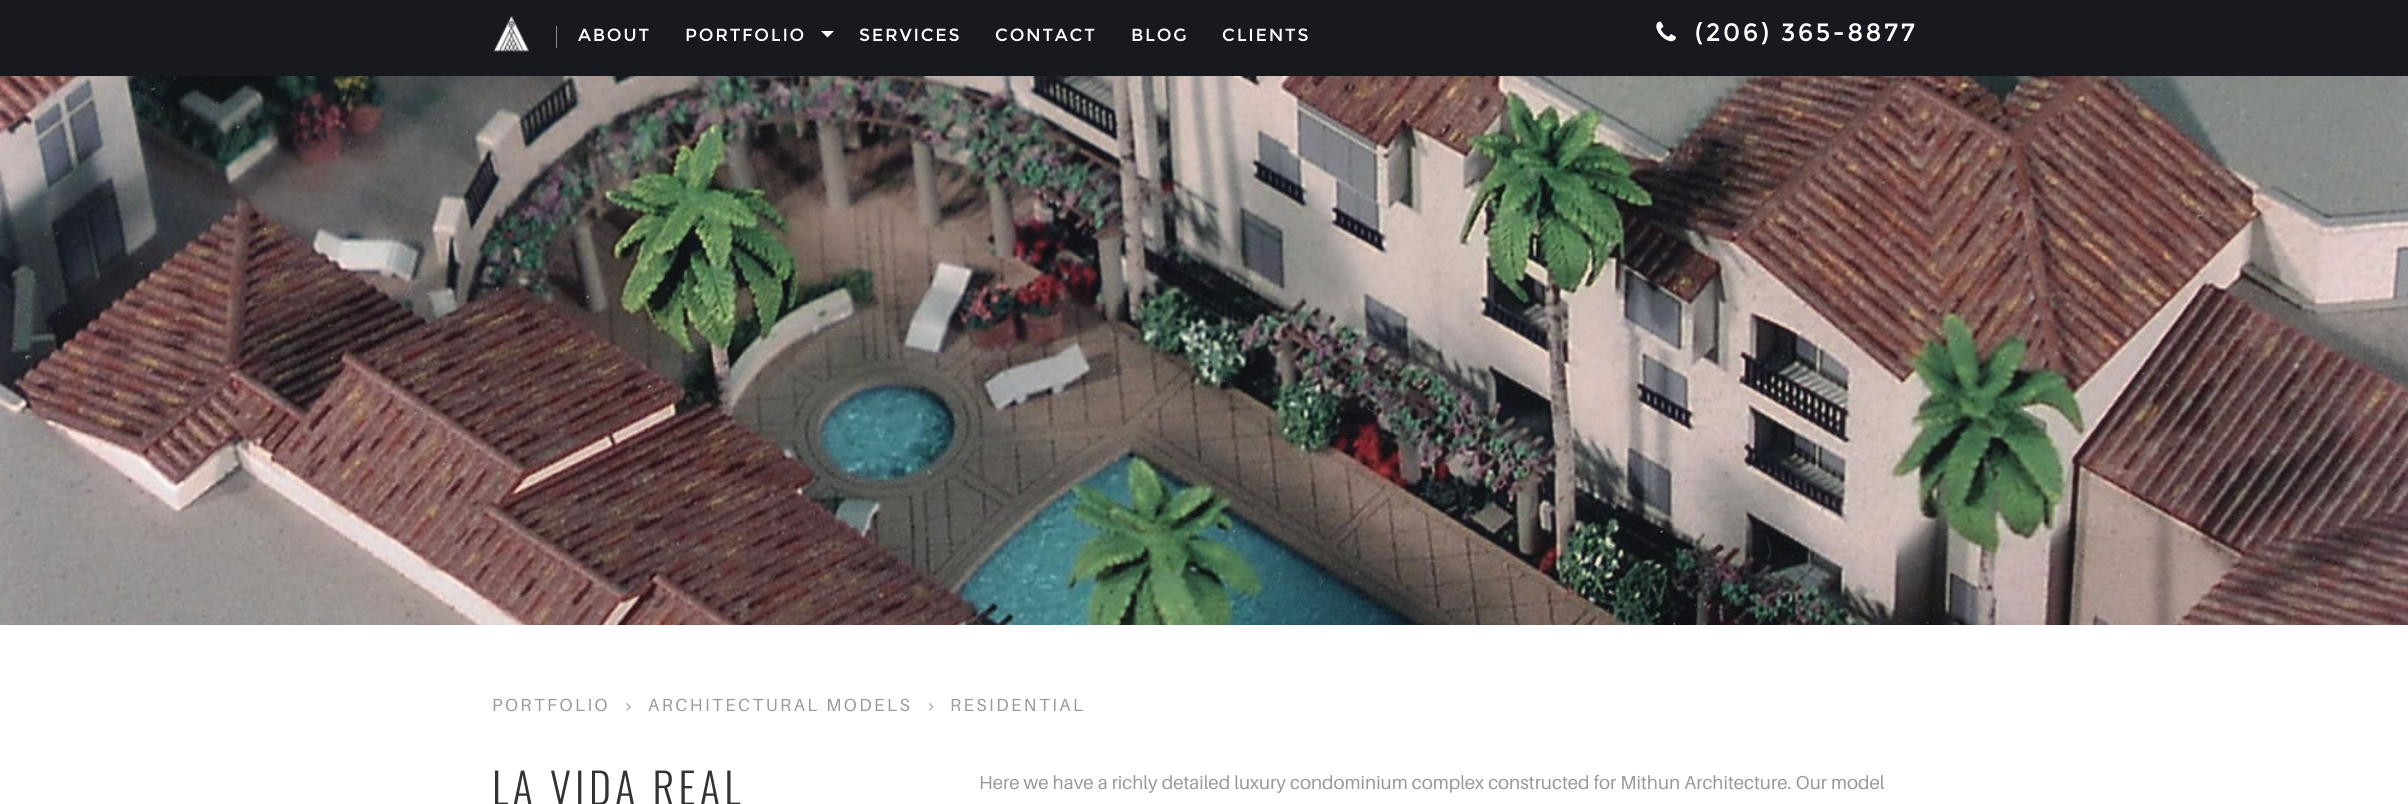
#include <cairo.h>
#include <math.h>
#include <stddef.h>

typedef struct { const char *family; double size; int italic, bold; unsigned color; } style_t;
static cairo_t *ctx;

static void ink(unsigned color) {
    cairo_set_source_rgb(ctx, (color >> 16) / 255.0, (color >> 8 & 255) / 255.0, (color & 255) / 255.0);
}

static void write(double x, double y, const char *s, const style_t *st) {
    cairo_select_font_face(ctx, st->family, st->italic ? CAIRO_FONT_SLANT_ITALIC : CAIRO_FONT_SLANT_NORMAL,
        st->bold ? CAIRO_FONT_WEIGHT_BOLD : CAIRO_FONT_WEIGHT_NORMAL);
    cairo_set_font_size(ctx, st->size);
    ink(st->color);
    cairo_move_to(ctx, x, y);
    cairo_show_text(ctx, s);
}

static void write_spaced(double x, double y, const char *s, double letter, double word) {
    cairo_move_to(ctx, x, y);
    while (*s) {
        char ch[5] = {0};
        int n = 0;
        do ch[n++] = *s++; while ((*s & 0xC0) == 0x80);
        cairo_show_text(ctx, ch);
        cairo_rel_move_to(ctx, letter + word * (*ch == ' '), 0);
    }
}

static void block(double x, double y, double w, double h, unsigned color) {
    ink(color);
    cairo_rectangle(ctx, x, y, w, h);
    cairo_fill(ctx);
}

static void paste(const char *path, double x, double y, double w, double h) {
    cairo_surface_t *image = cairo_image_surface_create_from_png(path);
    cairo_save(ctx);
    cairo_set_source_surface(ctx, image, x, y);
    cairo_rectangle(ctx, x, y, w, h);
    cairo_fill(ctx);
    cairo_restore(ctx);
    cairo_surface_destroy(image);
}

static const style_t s1 = {"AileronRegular", 18.75, 0, 0, 0x999999};

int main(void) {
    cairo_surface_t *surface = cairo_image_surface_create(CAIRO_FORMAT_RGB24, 2408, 804);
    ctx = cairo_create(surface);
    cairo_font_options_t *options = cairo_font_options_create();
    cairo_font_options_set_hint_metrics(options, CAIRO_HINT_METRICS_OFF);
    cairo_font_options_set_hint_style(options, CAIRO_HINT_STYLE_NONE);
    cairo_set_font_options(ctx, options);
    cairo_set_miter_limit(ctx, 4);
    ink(0xffffff);
    cairo_paint(ctx);
    block(0, 0, 2408, 76, 0x17191e);
    paste("pic1.png", 493, 16, 36, 36);
    block(556, 26, 1, 22, 0x8b8c8f);
    cairo_select_font_face(ctx, "Montserrat", CAIRO_FONT_SLANT_NORMAL, CAIRO_FONT_WEIGHT_NORMAL);
    cairo_set_font_size(ctx, 17.5);
    ink(0xffffff);
    write_spaced(578, 41, "ABOUT", 1.75, 0);
    write_spaced(685, 41, "PORTFOLIO", 1.75, 0);
    cairo_new_path(ctx);
    cairo_move_to(ctx, 821, 31);
    cairo_line_to(ctx, 834, 31);
    cairo_line_to(ctx, 827.5, 37.5);
    cairo_close_path(ctx);
    cairo_fill(ctx);
    write_spaced(859, 41, "SERVICES", 1.75, 0);
    write_spaced(995, 41, "CONTACT", 1.75, 0);
    write_spaced(1131, 41, "BLOG", 1.75, 0);
    write_spaced(1222, 41, "CLIENTS", 1.75, 0);
    paste("pic2.png", 1656, 21, 20, 21);
    cairo_set_font_size(ctx, 25);
    write_spaced(1695, 41, "(206) 365-8877", 2.5, 0);
    paste("pic3.png", 0, 76, 2408, 549);
    cairo_select_font_face(ctx, "AileronRegular", CAIRO_FONT_SLANT_NORMAL, CAIRO_FONT_WEIGHT_NORMAL);
    cairo_set_font_size(ctx, 17.5);
    ink(0x999999);
    write_spaced(492, 711, "PORTFOLIO", 2.5, 0);
    paste("pic4.png", 626, 703, 5, 8);
    write_spaced(648, 711, "ARCHITECTURAL MODELS", 2.5, 0);
    paste("pic5.png", 928, 703, 6, 8);
    write_spaced(950, 711, "RESIDENTIAL", 2.5, 0);
    cairo_select_font_face(ctx, "Oswald Light", CAIRO_FONT_SLANT_NORMAL, CAIRO_FONT_WEIGHT_NORMAL);
    cairo_set_font_size(ctx, 42.5);
    ink(0x333333);
    write_spaced(492, 805, "LA VIDA REAL", 4.25, 0);
    write(979, 789, "Here we have a richly detailed luxury condominium complex constructed for Mithun Architecture. Our model", &s1);
    cairo_surface_write_to_png(surface, "screenshot.png");
    cairo_font_options_destroy(options);
    cairo_destroy(ctx);
    cairo_surface_destroy(surface);
    return 0;
}
